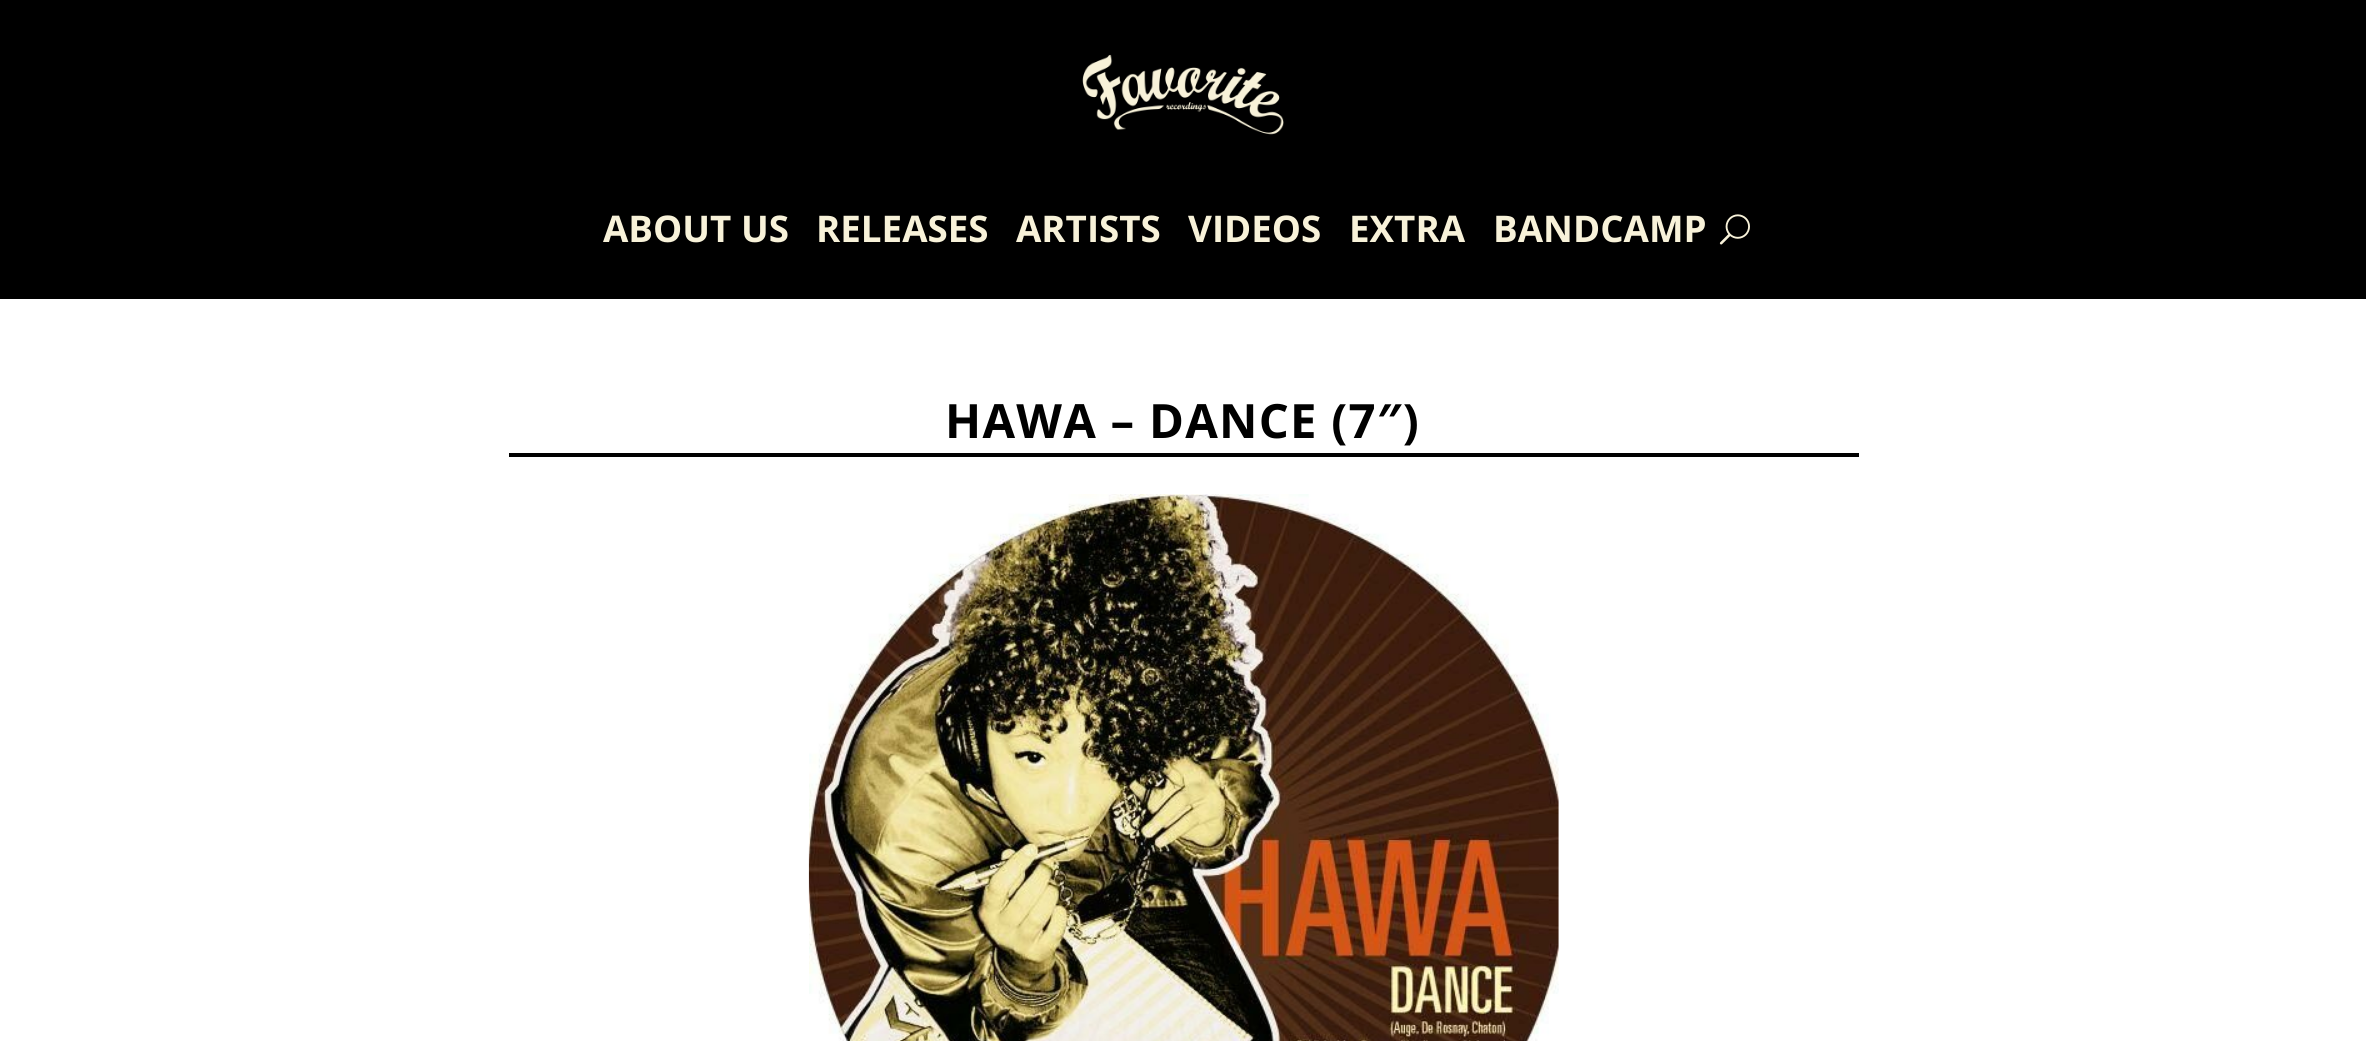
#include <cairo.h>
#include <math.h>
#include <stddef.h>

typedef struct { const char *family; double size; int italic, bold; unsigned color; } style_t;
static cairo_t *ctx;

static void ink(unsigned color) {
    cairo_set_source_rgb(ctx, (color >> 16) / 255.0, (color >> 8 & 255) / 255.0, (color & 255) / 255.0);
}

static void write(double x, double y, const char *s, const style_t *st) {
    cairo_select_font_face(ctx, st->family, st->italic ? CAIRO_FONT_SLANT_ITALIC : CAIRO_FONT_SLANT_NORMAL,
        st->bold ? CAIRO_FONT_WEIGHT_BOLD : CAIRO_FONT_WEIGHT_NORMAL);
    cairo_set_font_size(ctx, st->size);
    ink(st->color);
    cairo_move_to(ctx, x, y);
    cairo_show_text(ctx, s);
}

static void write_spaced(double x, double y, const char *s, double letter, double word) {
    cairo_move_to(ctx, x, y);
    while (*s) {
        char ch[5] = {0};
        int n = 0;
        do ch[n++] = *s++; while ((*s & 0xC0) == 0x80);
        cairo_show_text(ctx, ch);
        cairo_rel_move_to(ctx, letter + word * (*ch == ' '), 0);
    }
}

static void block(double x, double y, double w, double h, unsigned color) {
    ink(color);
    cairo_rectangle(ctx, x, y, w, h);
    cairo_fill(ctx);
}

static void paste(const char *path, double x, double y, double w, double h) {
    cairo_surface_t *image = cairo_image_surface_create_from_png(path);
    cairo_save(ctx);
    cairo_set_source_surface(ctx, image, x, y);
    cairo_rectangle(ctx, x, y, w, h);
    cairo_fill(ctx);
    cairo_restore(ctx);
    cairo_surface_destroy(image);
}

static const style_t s1 = {"Open Sans", 36.75, 0, 1, 0xf8f2d9};

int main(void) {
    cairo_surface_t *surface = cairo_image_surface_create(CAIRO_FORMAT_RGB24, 2366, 1041);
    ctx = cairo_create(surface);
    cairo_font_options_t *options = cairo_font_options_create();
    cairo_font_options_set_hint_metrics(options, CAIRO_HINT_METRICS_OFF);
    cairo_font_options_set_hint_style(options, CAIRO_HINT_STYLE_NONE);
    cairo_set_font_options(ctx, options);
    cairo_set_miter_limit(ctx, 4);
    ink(0xffffff);
    cairo_paint(ctx);
    block(0, 0, 2366, 299, 0x000000);
    paste("pic1.png", 1082, 54, 202, 81);
    write(603, 242, "ABOUT US", &s1);
    write(816, 242, "RELEASES", &s1);
    write(1016, 242, "ARTISTS", &s1);
    write(1188, 242, "VIDEOS", &s1);
    write(1349, 242, "EXTRA", &s1);
    write(1493, 242, "BANDCAMP", &s1);
    paste("pic2.png", 1719, 214, 31, 31);
    block(509, 453, 1350, 4, 0x000000);
    cairo_set_font_size(ctx, 47.25);
    write_spaced(945, 438, "HAWA – DANCE (7″)", 1.25, 0);
    paste("pic3.png", 808, 494, 751, 547);
    cairo_surface_write_to_png(surface, "screenshot.png");
    cairo_font_options_destroy(options);
    cairo_destroy(ctx);
    cairo_surface_destroy(surface);
    return 0;
}
